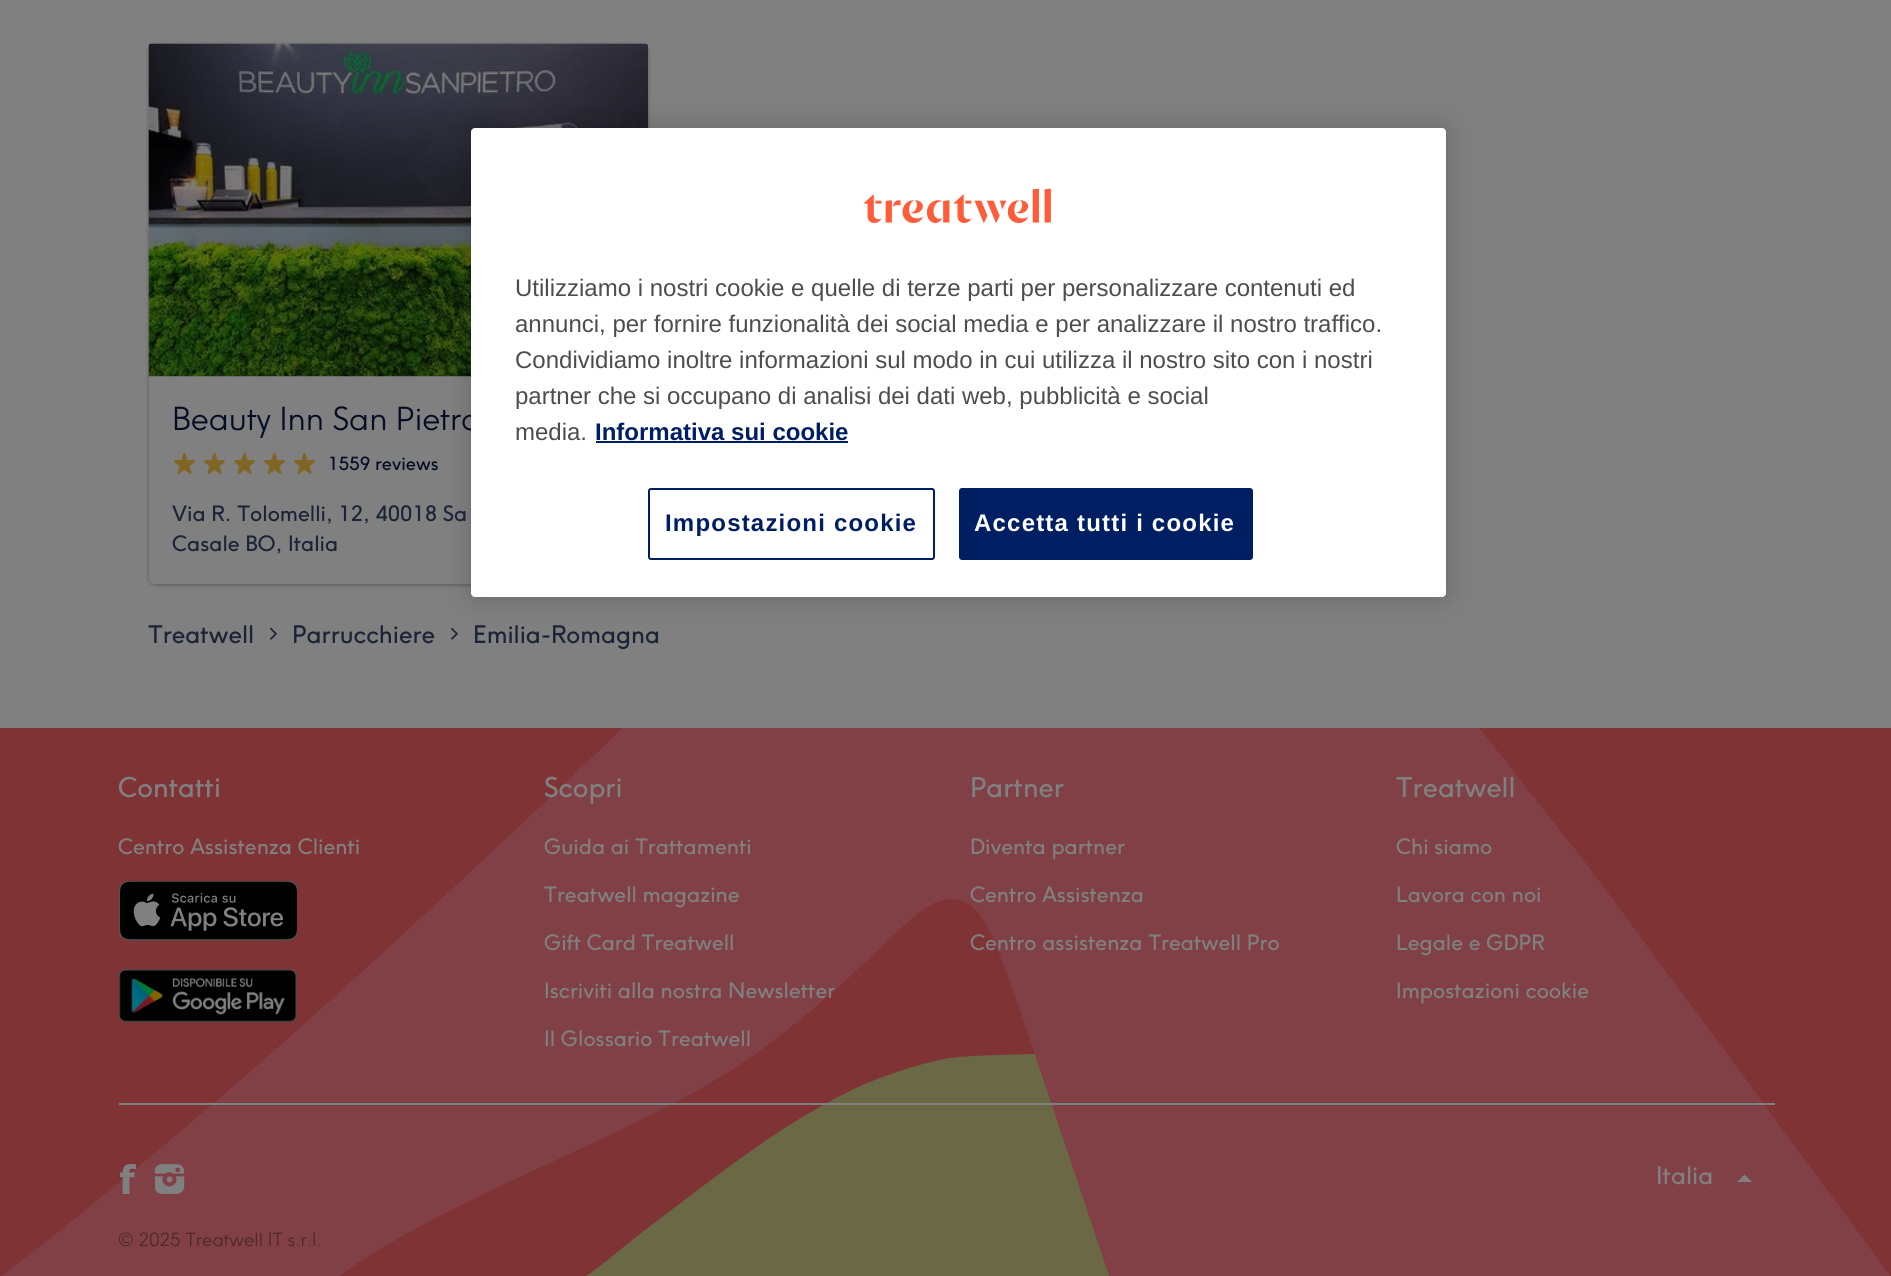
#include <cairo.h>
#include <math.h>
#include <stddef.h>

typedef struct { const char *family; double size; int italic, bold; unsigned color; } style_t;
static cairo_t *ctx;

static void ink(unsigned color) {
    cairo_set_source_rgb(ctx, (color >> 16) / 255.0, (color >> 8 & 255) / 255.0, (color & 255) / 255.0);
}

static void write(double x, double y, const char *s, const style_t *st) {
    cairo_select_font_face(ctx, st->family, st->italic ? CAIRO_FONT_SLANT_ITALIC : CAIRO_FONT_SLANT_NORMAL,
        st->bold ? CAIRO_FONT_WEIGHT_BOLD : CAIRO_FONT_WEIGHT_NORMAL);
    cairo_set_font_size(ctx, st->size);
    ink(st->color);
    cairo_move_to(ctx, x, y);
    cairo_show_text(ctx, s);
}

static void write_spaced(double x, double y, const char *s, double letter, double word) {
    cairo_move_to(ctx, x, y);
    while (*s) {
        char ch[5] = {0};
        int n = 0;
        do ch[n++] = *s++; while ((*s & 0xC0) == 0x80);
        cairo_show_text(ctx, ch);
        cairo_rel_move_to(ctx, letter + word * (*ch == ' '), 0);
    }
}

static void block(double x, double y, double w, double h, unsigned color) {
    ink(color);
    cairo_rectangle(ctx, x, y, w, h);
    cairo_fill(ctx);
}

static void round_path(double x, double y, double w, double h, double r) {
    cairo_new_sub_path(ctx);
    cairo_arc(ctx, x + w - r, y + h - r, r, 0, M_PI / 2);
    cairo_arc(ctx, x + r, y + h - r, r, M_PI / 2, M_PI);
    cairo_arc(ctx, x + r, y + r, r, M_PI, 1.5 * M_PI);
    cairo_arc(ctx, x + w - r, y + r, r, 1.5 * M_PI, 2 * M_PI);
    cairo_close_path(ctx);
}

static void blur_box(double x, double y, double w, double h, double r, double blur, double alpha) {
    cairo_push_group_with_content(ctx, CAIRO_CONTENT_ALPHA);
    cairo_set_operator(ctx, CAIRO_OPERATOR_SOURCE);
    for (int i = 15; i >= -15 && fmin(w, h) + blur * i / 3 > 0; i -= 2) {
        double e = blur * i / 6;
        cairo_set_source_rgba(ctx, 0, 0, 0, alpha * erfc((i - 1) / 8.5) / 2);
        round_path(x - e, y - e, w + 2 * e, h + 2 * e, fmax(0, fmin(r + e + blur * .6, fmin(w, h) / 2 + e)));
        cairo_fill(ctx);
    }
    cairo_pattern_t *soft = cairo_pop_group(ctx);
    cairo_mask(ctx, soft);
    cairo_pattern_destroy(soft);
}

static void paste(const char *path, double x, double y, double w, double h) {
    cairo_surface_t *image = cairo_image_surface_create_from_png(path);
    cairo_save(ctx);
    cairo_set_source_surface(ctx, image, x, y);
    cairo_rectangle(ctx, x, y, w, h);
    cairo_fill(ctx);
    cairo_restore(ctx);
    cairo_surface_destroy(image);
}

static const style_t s1 = {"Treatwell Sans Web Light", 31.5, 0, 0, 0x040d24};
static const style_t s2 = {"Liberation Sans", 24, 0, 0, 0x4d4d4d};
static const style_t s3 = {"Liberation Sans", 24, 0, 1, 0x001e62};
static const style_t s4 = {"Treatwell Sans Web", 18, 0, 0, 0x040d24};
static const style_t s5 = {"Treatwell Sans Web", 21, 0, 0, 0x1b2336};
static const style_t s6 = {"Treatwell Sans Web", 24, 0, 0, 0x1b2336};
static const style_t s7 = {"Treatwell Sans Web", 18, 0, 0, 0x1b2336};
static const style_t s8 = {"Treatwell Sans Web", 27, 0, 0, 0x808080};
static const style_t s9 = {"Treatwell Sans Web", 21, 0, 0, 0x808080};
static const style_t s10 = {"Treatwell Sans Web", 24, 0, 0, 0x808080};
static const style_t s11 = {"Treatwell Sans Web Light", 18, 0, 0, 0x4d272a};

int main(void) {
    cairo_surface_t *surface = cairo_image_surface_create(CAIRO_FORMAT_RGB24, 1891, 1276);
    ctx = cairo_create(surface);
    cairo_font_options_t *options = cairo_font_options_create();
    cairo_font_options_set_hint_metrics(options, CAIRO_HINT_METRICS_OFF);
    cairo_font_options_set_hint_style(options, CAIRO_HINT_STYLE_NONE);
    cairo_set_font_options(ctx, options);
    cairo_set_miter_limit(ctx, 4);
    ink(0x808080);
    cairo_paint(ctx);
    ink(0x000000);
    blur_box(149, 45, 499, 540, 6, 2, 0.3);
    ink(0x808080);
    round_path(149, 44, 499, 540, 6);
    cairo_fill(ctx);
    paste("pic2.png", 148, 43, 500, 334);
    ink(0x000000);
    blur_box(471, 128, 975, 469, 4, 13.5, 0.2);
    write(172, 430, "Beauty Inn San Pietro", &s1);
    ink(0xffffff);
    round_path(471, 128, 975, 469, 4);
    cairo_fill(ctx);
    paste("pic1.png", 863, 188, 188, 35);
    write(515, 296, "Utilizziamo i nostri cookie e quelle di terze parti per personalizzare contenuti ed", &s2);
    write(515, 332, "annunci, per fornire funzionalità dei social media e per analizzare il nostro traffico.", &s2);
    write(515, 368, "Condividiamo inoltre informazioni sul modo in cui utilizza il nostro sito con i nostri", &s2);
    write(515, 404, "partner che si occupano di analisi dei dati web, pubblicità e social", &s2);
    write(515, 440, "media.", &s2);
    write(595, 440, "Informativa sui cookie", &s3);
    block(596, 441, 252, 2, 0x001e62);
    round_path(649, 489, 285, 70, 2);
    cairo_stroke(ctx);
    write_spaced(665, 531, "Impostazioni cookie", 1.2, 0);
    round_path(960, 489, 292, 70, 2);
    cairo_fill_preserve(ctx);
    cairo_stroke(ctx);
    ink(0xffffff);
    write_spaced(974, 531, "Accetta tutti i cookie", 1.2, 0);
    paste("pic3.png", 174, 453, 21, 21);
    paste("pic3.png", 204, 453, 21, 21);
    paste("pic3.png", 234, 453, 21, 21);
    paste("pic3.png", 264, 453, 21, 21);
    paste("pic3.png", 294, 453, 21, 21);
    write(328, 470, "1559 reviews", &s4);
    write(172, 521, "Via R. Tolomelli, 12, 40018 Sa", &s5);
    write(172, 551, "Casale BO, Italia", &s5);
    write(148, 643, "Treatwell", &s6);
    write(269, 640, ">", &s7);
    write(292, 643, "Parrucchiere", &s6);
    write(450, 640, ">", &s7);
    write(473, 643, "Emilia-Romagna", &s6);
    block(0, 728, 1891, 548, 0x803334);
    paste("pic4.png", 1, 728, 1890, 548);
    write(118, 797, "Contatti", &s8);
    write(118, 854, "Centro Assistenza Clienti", &s9);
    paste("pic5.png", 119, 881, 178, 60);
    paste("pic6.png", 119, 969, 178, 54);
    write(544, 797, "Scopri", &s8);
    write(544, 854, "Guida ai Trattamenti", &s9);
    write(544, 902, "Treatwell magazine", &s9);
    write(544, 950, "Gift Card Treatwell", &s9);
    write(544, 998, "Iscriviti alla nostra Newsletter", &s9);
    write(544, 1046, "Il Glossario Treatwell", &s9);
    write(970, 797, "Partner", &s8);
    write(970, 854, "Diventa partner", &s9);
    write(970, 902, "Centro Assistenza", &s9);
    write(970, 950, "Centro assistenza Treatwell Pro", &s9);
    write(1396, 797, "Treatwell", &s8);
    write(1396, 854, "Chi siamo", &s9);
    write(1396, 902, "Lavora con noi", &s9);
    write(1396, 950, "Legale e GDPR", &s9);
    write(1396, 998, "Impostazioni cookie", &s9);
    block(119, 1103, 1656, 2, 0x808080);
    paste("pic7.png", 120, 1164, 16, 30);
    paste("pic8.png", 155, 1164, 30, 30);
    write(1656, 1184, "Italia", &s10);
    cairo_new_path(ctx);
    cairo_move_to(ctx, 1752, 1182);
    cairo_line_to(ctx, 1737, 1182);
    cairo_line_to(ctx, 1744.5, 1174.5);
    cairo_close_path(ctx);
    cairo_fill(ctx);
    write(118, 1246, "© 2025 Treatwell IT s.r.l.", &s11);
    cairo_surface_write_to_png(surface, "screenshot.png");
    cairo_font_options_destroy(options);
    cairo_destroy(ctx);
    cairo_surface_destroy(surface);
    return 0;
}
